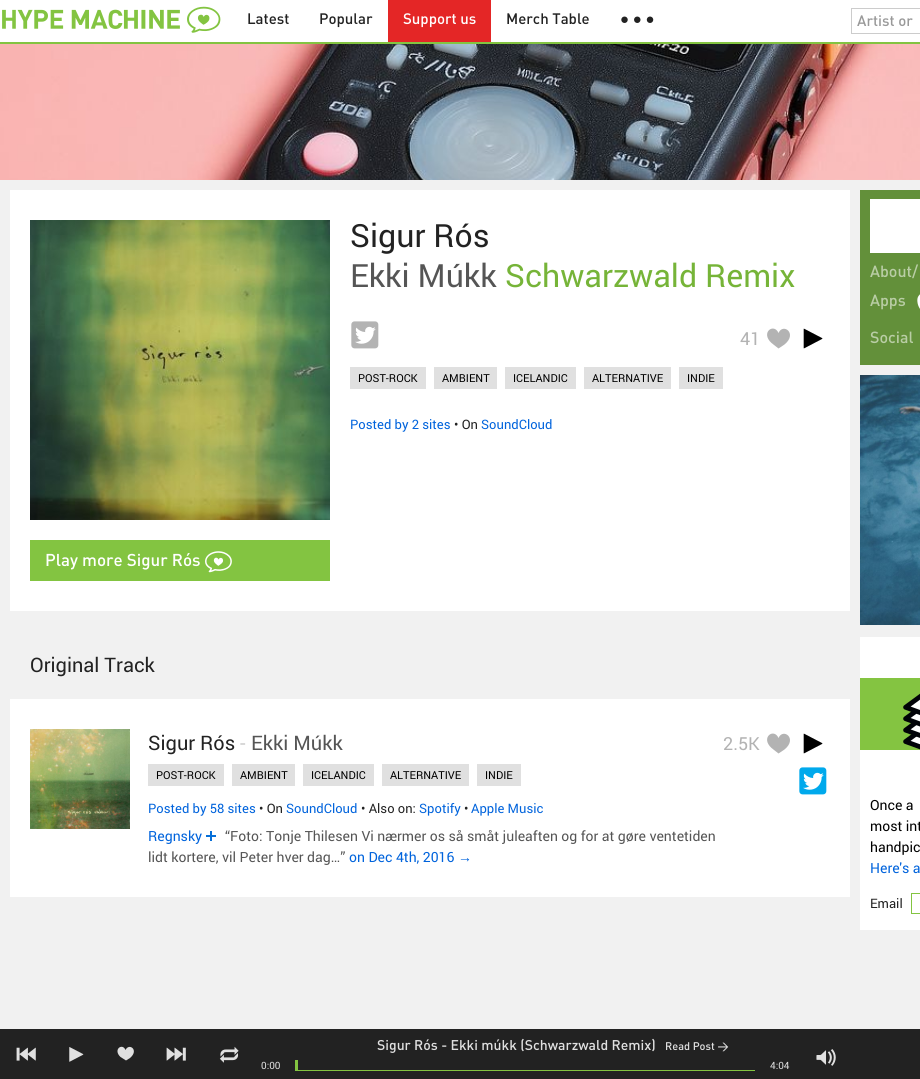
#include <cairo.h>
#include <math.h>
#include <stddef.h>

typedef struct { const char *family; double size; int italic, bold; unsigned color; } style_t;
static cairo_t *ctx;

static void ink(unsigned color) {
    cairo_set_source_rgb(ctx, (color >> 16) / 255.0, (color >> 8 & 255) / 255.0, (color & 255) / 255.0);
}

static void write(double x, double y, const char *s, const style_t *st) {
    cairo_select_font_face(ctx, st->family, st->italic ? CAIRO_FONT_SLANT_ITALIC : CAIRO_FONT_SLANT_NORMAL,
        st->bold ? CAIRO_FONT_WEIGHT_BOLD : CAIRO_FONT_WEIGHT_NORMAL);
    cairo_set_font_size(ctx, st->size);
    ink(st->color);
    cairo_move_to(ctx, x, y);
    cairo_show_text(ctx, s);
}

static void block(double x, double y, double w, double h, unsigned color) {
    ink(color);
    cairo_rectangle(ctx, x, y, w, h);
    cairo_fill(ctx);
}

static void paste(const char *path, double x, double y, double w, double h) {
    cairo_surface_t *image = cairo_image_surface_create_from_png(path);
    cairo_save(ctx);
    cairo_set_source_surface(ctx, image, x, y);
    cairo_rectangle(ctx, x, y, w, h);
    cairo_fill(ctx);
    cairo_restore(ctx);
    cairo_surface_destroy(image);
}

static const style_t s1 = {"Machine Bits", 38, 0, 0, 0x83c441};
static const style_t s2 = {"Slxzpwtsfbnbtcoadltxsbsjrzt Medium", 15, 0, 0, 0x222222};
static const style_t s3 = {"Slxzpwtsfbnbtcoadltxsbsjrzt Medium", 15, 0, 0, 0xffffff};
static const style_t s4 = {"Liberation Serif", 15, 0, 1, 0x222222};
static const style_t s5 = {"Slxzpwtsfbnbtcoadltxsbsjrzt Medium", 15, 0, 0, 0x999999};
static const style_t s6 = {"Roboto", 32, 0, 0, 0x222222};
static const style_t s7 = {"Roboto", 32, 0, 0, 0x555555};
static const style_t s8 = {"Roboto", 32, 0, 0, 0x76b438};
static const style_t s9 = {"Roboto", 18, 0, 0, 0xb3b3b3};
static const style_t s10 = {"Roboto", 11, 0, 0, 0x000000};
static const style_t s11 = {"Roboto", 13, 0, 0, 0x0063dc};
static const style_t s12 = {"Roboto", 13, 0, 0, 0x222222};
static const style_t s13 = {"Slxzpwtsfbnbtcoadltxsbsjrzt Medium", 17, 0, 0, 0xffffff};
static const style_t s14 = {"Machine Bits", 21, 0, 0, 0xffffff};
static const style_t s15 = {"Roboto", 20, 0, 0, 0x222222};
static const style_t s16 = {"Roboto", 20, 0, 0, 0xcccccc};
static const style_t s17 = {"Roboto", 20, 0, 0, 0x555555};
static const style_t s18 = {"Roboto", 14, 0, 0, 0x0063dc};
static const style_t s19 = {"Roboto", 14, 0, 0, 0x555555};
static const style_t s20 = {"Liberation Sans", 14, 0, 0, 0x0063dc};
static const style_t s21 = {"Slxzpwtsfbnbtcoadltxsbsjrzt Medium", 16, 0, 0, 0xb9cda5};
static const style_t s22 = {"Roboto", 14, 0, 0, 0x000000};
static const style_t s23 = {"Slxzpwtsfbnbtcoadltxsbsjrzt Medium", 14, 0, 0, 0xe0e0e0};
static const style_t s24 = {"Slxzpwtsfbnbtcoadltxsbsjrzt Medium", 11, 0, 0, 0xe0e0e0};
static const style_t s25 = {"Roboto", 10, 0, 0, 0xe0e0e0};

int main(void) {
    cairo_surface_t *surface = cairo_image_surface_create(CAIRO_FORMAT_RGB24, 920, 1079);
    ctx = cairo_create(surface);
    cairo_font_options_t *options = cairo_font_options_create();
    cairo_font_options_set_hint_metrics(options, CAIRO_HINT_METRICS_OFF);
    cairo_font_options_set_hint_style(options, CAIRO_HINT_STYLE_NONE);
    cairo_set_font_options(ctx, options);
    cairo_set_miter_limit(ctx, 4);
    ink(0xf1f1f1);
    cairo_paint(ctx);
    block(0, 0, 920, 42, 0xffffff);
    block(0, 42, 920, 2, 0x83c441);
    write(0, 28, "1", &s1);
    write(247, 24, "Latest", &s2);
    write(319, 24, "Popular", &s2);
    block(388, 0, 103, 42, 0xe42626);
    write(403, 24, "Support us", &s3);
    write(506, 24, "Merch Table", &s2);
    write(620, 24, "● ● ●", &s4);
    cairo_rectangle(ctx, 851.5, 8.5, 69, 25);
    ink(0xcccccc);
    cairo_set_line_width(ctx, 1);
    cairo_stroke(ctx);
    write(857, 26, "Artist or", &s5);
    paste("pic1.png", 0, 44, 920, 136);
    block(10, 190, 840, 421, 0xffffff);
    paste("pic2.png", 30, 220, 300, 300);
    write(350, 247, "Sigur Rós", &s6);
    write(350, 287, "Ekki Múkk", &s7);
    write(505, 287, "Schwarzwald Remix", &s8);
    paste("pic3.png", 351, 321, 28, 28);
    write(740, 345, "41", &s9);
    cairo_new_path(ctx);
    cairo_move_to(ctx, 778.5, 333);
    cairo_curve_to(ctx, 783, 322.5, 798, 333.5, 784.5, 344.5);
    cairo_line_to(ctx, 778.5, 348.5);
    cairo_line_to(ctx, 771.5, 343);
    cairo_curve_to(ctx, 760, 332.5, 774, 322.5, 778.5, 333);
    cairo_close_path(ctx);
    cairo_fill(ctx);
    paste("pic4.png", 803, 328, 20, 21);
    block(350, 367, 76, 22, 0xe0e0e0);
    write(358, 382, "POST-ROCK", &s10);
    block(434, 367, 63, 22, 0xe0e0e0);
    write(442, 382, "AMBIENT", &s10);
    block(505, 367, 71, 22, 0xe0e0e0);
    write(513, 382, "ICELANDIC", &s10);
    block(584, 367, 87, 22, 0xe0e0e0);
    write(592, 382, "ALTERNATIVE", &s10);
    block(679, 367, 44, 22, 0xe0e0e0);
    write(687, 382, "INDIE", &s10);
    write(350, 429, "Posted by 2 sites", &s11);
    write(454, 429, "• On", &s12);
    write(481, 429, "SoundCloud", &s11);
    block(30, 540, 300, 41, 0x83c441);
    write(45, 566, "Play more Sigur Rós", &s13);
    write(204, 566, "2", &s14);
    write(30, 672, "Original Track", &s15);
    block(10, 699, 840, 198, 0xffffff);
    paste("pic5.png", 30, 729, 100, 100);
    write(148, 750, "Sigur Rós", &s15);
    write(240, 750, "-", &s16);
    write(251, 750, "Ekki Múkk", &s17);
    write(723, 750, "2.5K", &s9);
    cairo_new_path(ctx);
    cairo_move_to(ctx, 778.5, 738);
    cairo_curve_to(ctx, 783, 727.5, 798, 738.5, 784.5, 749.5);
    cairo_line_to(ctx, 778.5, 753.5);
    cairo_line_to(ctx, 771.5, 748);
    cairo_curve_to(ctx, 760, 737.5, 774, 727.5, 778.5, 738);
    cairo_close_path(ctx);
    cairo_fill(ctx);
    paste("pic4.png", 803, 733, 20, 21);
    block(148, 764, 76, 22, 0xe0e0e0);
    write(156, 779, "POST-ROCK", &s10);
    block(232, 764, 63, 22, 0xe0e0e0);
    write(240, 779, "AMBIENT", &s10);
    block(303, 764, 71, 22, 0xe0e0e0);
    write(311, 779, "ICELANDIC", &s10);
    block(382, 764, 87, 22, 0xe0e0e0);
    write(390, 779, "ALTERNATIVE", &s10);
    block(477, 764, 44, 22, 0xe0e0e0);
    write(485, 779, "INDIE", &s10);
    paste("pic6.png", 799, 767, 28, 28);
    write(148, 813, "Posted by 58 sites", &s11);
    write(259, 813, "• On", &s12);
    write(286, 813, "SoundCloud", &s11);
    write(361, 813, "• Also on:", &s12);
    write(419, 813, "Spotify", &s11);
    write(464, 813, "•", &s12);
    write(471, 813, "Apple Music", &s11);
    write(148, 841, "Regnsky", &s18);
    paste("pic7.png", 206, 831, 10, 10);
    write(225, 841, "“Foto: Tonje Thilesen Vi nærmer os så småt juleaften og for at gøre ventetiden", &s19);
    write(148, 862, "lidt kortere, vil Peter hver dag…”", &s19);
    write(349, 862, "on Dec 4th, 2016", &s18);
    write(458, 862, "→", &s20);
    block(860, 190, 60, 175, 0x63903a);
    block(870, 199, 50, 54, 0xffffff);
    write(870, 277, "About/", &s21);
    write(870, 306, "Apps", &s21);
    paste("pic8.png", 917, 294, 3, 15);
    write(870, 343, "Social", &s21);
    paste("pic9.png", 860, 375, 60, 250);
    block(860, 637, 60, 293, 0xffffff);
    paste("pic10.png", 860, 678, 60, 72);
    write(870, 810, "Once a", &s22);
    write(870, 831, "most int", &s22);
    write(870, 852, "handpic", &s22);
    write(870, 873, "Here's a", &s18);
    write(870, 908, "Email", &s12);
    cairo_rectangle(ctx, 911.5, 893.5, 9, 20);
    ink(0x83c441);
    cairo_stroke(ctx);
    block(0, 1029, 920, 50, 0x222222);
    paste("pic11.png", 16, 1047, 20, 14);
    paste("pic12.png", 69, 1047, 15, 15);
    ink(0xe0e0e0);
    cairo_new_path(ctx);
    cairo_move_to(ctx, 125.5, 1050);
    cairo_curve_to(ctx, 129, 1042.5, 139.5, 1050, 130, 1058);
    cairo_line_to(ctx, 126, 1060.5);
    cairo_line_to(ctx, 120.5, 1057);
    cairo_curve_to(ctx, 112.5, 1049.5, 122.5, 1042.5, 125.5, 1050);
    cairo_close_path(ctx);
    cairo_fill(ctx);
    paste("pic13.png", 166, 1047, 20, 14);
    paste("pic14.png", 219, 1046, 20, 17);
    write(377, 1050, "Sigur Rós - Ekki múkk (Schwarzwald Remix)", &s23);
    write(665, 1050, "Read Post →", &s24);
    write(261, 1069, "0:00", &s25);
    block(295, 1070, 460, 1, 0x83c441);
    block(295, 1060, 3, 10, 0x83c441);
    write(770, 1069, "4:04", &s25);
    paste("pic15.png", 816, 1049, 20, 17);
    cairo_surface_write_to_png(surface, "screenshot.png");
    cairo_font_options_destroy(options);
    cairo_destroy(ctx);
    cairo_surface_destroy(surface);
    return 0;
}
